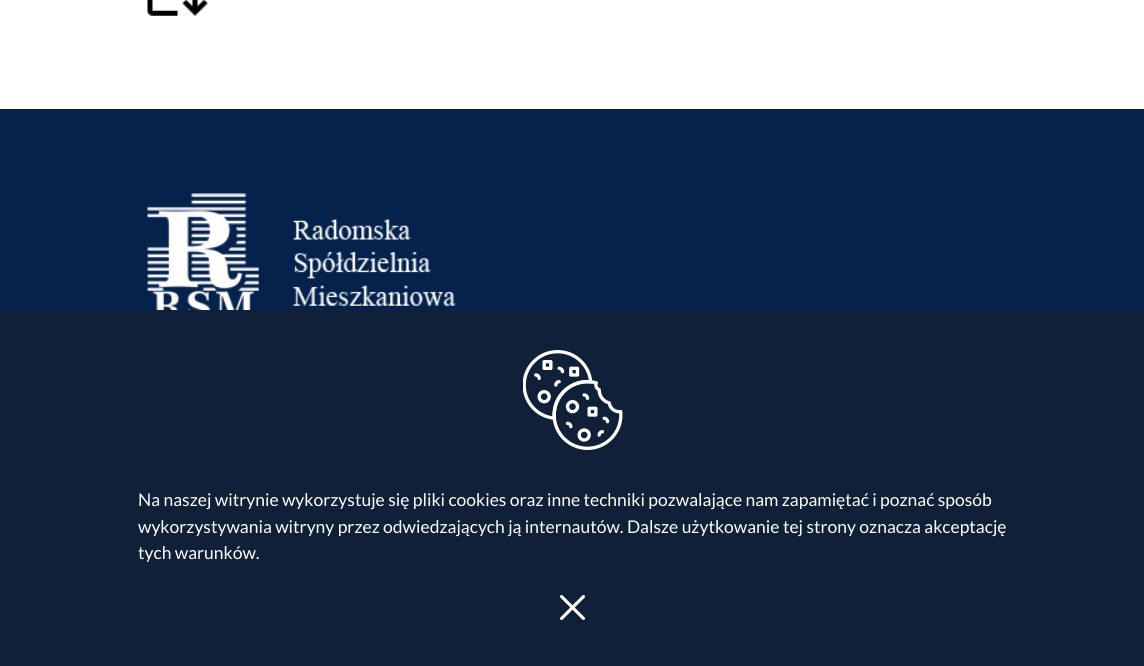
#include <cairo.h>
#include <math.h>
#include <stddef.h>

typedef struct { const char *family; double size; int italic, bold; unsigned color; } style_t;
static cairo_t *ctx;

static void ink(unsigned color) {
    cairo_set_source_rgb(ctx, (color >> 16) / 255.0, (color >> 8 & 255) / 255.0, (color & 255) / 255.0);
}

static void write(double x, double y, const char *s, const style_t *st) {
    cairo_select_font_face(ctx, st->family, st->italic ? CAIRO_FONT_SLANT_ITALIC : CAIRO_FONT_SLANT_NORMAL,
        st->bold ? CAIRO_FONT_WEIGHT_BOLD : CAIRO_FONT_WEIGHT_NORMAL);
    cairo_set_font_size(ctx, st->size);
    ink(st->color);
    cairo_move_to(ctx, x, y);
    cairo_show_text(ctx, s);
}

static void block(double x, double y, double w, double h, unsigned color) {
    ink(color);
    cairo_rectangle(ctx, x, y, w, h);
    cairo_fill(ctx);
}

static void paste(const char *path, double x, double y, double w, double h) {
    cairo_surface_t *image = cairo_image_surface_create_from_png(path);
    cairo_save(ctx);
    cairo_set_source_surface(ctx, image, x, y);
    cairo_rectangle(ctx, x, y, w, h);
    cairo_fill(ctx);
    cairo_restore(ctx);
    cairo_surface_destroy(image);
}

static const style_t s1 = {"Lato", 17.5, 0, 0, 0xffffff};

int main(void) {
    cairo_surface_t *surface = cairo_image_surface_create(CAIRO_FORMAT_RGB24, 1144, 666);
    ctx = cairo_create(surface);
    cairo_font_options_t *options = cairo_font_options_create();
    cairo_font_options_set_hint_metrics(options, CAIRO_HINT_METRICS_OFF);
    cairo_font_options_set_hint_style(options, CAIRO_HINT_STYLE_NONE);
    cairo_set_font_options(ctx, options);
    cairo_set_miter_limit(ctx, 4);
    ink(0xffffff);
    cairo_paint(ctx);
    paste("pic1.png", 147, 0, 61, 16);
    block(0, 109, 1144, 201, 0x05224c);
    paste("pic2.png", 147, 193, 310, 117);
    block(0, 310, 1144, 356, 0x102039);
    paste("pic3.png", 523, 350, 100, 100);
    write(138, 506, "Na naszej witrynie wykorzystuje się pliki cookies oraz inne techniki pozwalające nam zapamiętać i poznać sposób", &s1);
    write(138, 533, "wykorzystywania witryny przez odwiedzających ją internautów. Dalsze użytkowanie tej strony oznacza akceptację", &s1);
    write(138, 559, "tych warunków.", &s1);
    paste("pic4.png", 560, 595, 25, 25);
    cairo_surface_write_to_png(surface, "screenshot.png");
    cairo_font_options_destroy(options);
    cairo_destroy(ctx);
    cairo_surface_destroy(surface);
    return 0;
}
